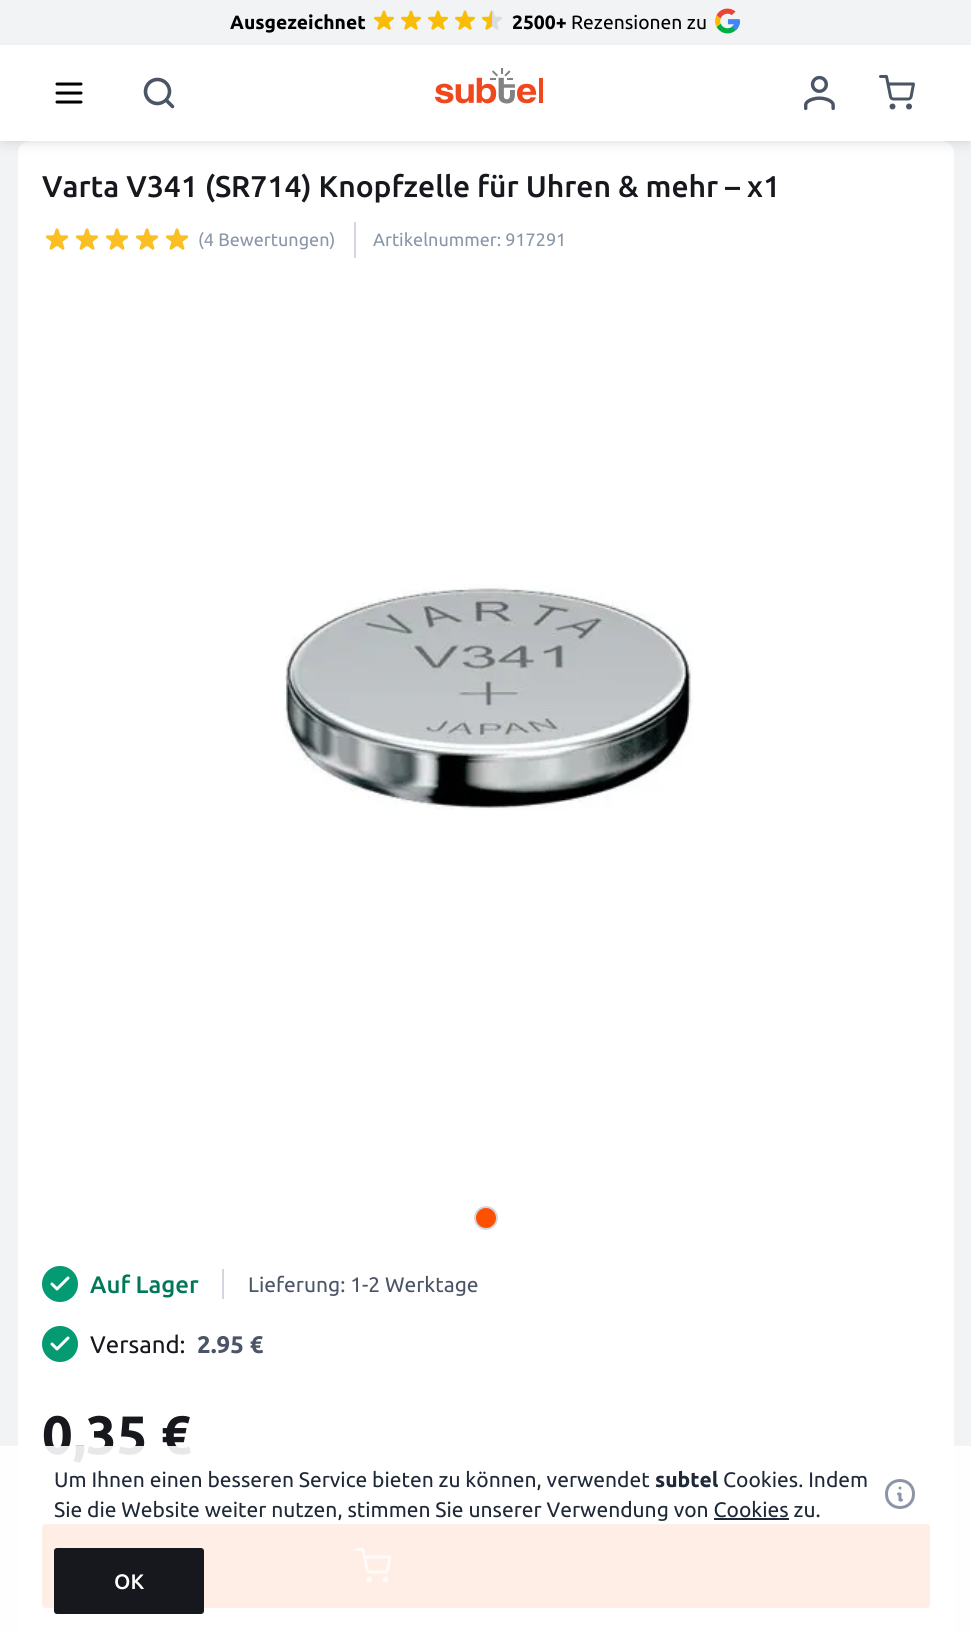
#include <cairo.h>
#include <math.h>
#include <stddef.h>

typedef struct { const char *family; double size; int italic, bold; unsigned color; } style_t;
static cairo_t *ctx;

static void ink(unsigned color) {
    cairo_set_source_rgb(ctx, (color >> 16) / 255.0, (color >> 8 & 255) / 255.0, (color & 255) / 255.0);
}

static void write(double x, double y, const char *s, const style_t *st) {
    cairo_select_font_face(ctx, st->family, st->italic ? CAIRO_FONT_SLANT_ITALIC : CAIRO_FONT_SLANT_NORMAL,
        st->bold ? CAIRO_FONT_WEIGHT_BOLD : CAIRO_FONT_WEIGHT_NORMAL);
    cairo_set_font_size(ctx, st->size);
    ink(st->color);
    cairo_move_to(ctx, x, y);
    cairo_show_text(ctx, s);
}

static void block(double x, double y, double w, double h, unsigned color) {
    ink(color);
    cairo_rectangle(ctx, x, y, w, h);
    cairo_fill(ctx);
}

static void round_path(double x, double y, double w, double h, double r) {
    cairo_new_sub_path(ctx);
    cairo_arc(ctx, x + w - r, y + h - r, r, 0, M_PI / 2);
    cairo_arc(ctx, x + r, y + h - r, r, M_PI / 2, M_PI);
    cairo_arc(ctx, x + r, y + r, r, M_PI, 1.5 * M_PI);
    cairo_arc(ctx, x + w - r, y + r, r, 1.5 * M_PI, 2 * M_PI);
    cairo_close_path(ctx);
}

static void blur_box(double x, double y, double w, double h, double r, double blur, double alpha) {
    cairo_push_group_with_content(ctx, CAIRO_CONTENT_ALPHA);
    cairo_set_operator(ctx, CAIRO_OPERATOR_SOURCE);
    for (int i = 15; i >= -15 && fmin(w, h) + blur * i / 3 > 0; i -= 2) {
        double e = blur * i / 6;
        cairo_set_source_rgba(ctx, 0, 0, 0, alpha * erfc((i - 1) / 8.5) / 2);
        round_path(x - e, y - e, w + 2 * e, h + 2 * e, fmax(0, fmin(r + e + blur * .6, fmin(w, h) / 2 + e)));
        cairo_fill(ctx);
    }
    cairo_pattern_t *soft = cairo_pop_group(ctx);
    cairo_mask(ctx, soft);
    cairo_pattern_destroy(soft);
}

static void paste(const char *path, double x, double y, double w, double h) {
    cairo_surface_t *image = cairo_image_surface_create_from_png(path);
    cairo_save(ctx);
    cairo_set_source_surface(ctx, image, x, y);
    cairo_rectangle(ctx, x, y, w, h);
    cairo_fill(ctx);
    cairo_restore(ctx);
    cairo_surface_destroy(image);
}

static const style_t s1 = {"Ubuntu", 19.25, 0, 1, 0x000000};
static const style_t s2 = {"Ubuntu", 19.25, 0, 0, 0x000000};
static const style_t s3 = {"Ubuntu Medium", 30, 0, 0, 0x16181d};
static const style_t s4 = {"Ubuntu", 18, 0, 0, 0x8a96a8};
static const style_t s5 = {"Ubuntu Medium", 24, 0, 0, 0x027859};
static const style_t s6 = {"Ubuntu", 21, 0, 0, 0x4c5567};
static const style_t s7 = {"Ubuntu", 24, 0, 0, 0x16181d};
static const style_t s8 = {"Ubuntu", 24, 0, 1, 0x4c5567};
static const style_t s9 = {"Ubuntu", 54, 0, 1, 0x16181d};
static const style_t s10 = {"Ubuntu", 21, 0, 0, 0x1f2937};
static const style_t s11 = {"Ubuntu", 21, 0, 1, 0x1f2937};
static const style_t s12 = {"Ubuntu Medium", 21, 0, 0, 0xffffff};

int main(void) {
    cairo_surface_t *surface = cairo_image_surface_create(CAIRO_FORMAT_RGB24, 971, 1632);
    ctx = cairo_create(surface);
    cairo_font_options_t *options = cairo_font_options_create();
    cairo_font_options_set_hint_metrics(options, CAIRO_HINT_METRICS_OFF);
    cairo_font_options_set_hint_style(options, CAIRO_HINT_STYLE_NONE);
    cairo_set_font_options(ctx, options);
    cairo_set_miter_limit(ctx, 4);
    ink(0xf1f3f5);
    cairo_paint(ctx);
    write(230, 29, "Ausgezeichnet", &s1);
    paste("pic1.png", 374, 10, 20, 20);
    paste("pic1.png", 401, 10, 20, 20);
    paste("pic1.png", 428, 10, 20, 20);
    paste("pic1.png", 455, 10, 20, 20);
    paste("pic2.png", 482, 10, 20, 20);
    write(512, 29, "2500+", &s1);
    write(571, 29, "Rezensionen zu", &s2);
    paste("pic3.png", 715, 8, 25, 26);
    ink(0xffffff);
    round_path(18, 141, 936, 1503, 12);
    cairo_fill(ctx);
    ink(0x101828);
    blur_box(3, 54, 966, 90, 0, 6, 0.1);
    blur_box(3, 51, 966, 90, 0, 3, 0.06);
    block(0, 45, 971, 96, 0xffffff);
    cairo_new_path(ctx);
    cairo_move_to(ctx, 57, 84);
    cairo_line_to(ctx, 81, 84);
    cairo_move_to(ctx, 57, 93);
    cairo_line_to(ctx, 81, 93);
    cairo_move_to(ctx, 57, 102);
    cairo_line_to(ctx, 81, 102);
    ink(0x000000);
    cairo_set_line_width(ctx, 3);
    cairo_set_line_cap(ctx, CAIRO_LINE_CAP_ROUND);
    cairo_set_line_join(ctx, CAIRO_LINE_JOIN_ROUND);
    cairo_stroke(ctx);
    paste("pic4.png", 143, 77, 32, 32);
    paste("pic5.png", 435, 68, 108, 36);
    paste("pic6.png", 804, 75, 31, 36);
    paste("pic7.png", 879, 75, 36, 35);
    write(42, 197, "Varta V341 (SR714) Knopfzelle für Uhren & mehr – x1", &s3);
    paste("pic8.png", 45, 228, 24, 22);
    paste("pic8.png", 75, 228, 24, 22);
    paste("pic8.png", 105, 228, 24, 22);
    paste("pic8.png", 135, 228, 24, 22);
    paste("pic8.png", 165, 228, 24, 22);
    write(198, 246, "(4 Bewertungen)", &s4);
    block(354, 222, 2, 36, 0xd3d7df);
    write(373, 246, "Artikelnummer: 917291", &s4);
    paste("pic9.png", 284, 584, 409, 226);
    ink(0xff5000);
    cairo_arc(ctx, 486, 1218, 11, 0, 2 * M_PI);
    cairo_fill_preserve(ctx);
    ink(0xd3d7df);
    cairo_set_line_width(ctx, 2);
    cairo_set_line_cap(ctx, CAIRO_LINE_CAP_BUTT);
    cairo_set_line_join(ctx, CAIRO_LINE_JOIN_MITER);
    cairo_stroke(ctx);
    ink(0x049a72);
    cairo_arc(ctx, 60, 1284, 18, 0, 2 * M_PI);
    cairo_fill(ctx);
    paste("pic10.png", 50, 1276, 20, 15);
    write(90, 1293, "Auf Lager", &s5);
    block(222, 1269, 2, 30, 0xd3d7df);
    write(248, 1292, "Lieferung: 1-2 Werktage", &s6);
    ink(0x049a72);
    cairo_new_path(ctx);
    cairo_arc(ctx, 60, 1344, 18, 0, 2 * M_PI);
    cairo_fill(ctx);
    paste("pic10.png", 50, 1336, 20, 15);
    write(90, 1353, "Versand:", &s7);
    write(197, 1353, "2.95 €", &s8);
    write(42, 1454, "0,35 €", &s9);
    ink(0xff5000);
    round_path(42, 1524, 888, 84, 3);
    cairo_fill(ctx);
    paste("pic11.png", 355, 1548, 37, 35);
    cairo_set_source_rgba(ctx, 1, 1, 1, 0.9);
    cairo_rectangle(ctx, 0, 1446, 971, 186);
    cairo_fill(ctx);
    write(54, 1487, "Um Ihnen einen besseren Service bieten zu können, verwendet", &s10);
    write(655, 1487, "subtel", &s11);
    write(723, 1487, "Cookies. Indem", &s10);
    write(54, 1517, "Sie die Website weiter nutzen, stimmen Sie unserer Verwendung von Cookies zu.", &s10);
    block(714, 1518, 75, 2, 0x1f2937);
    cairo_new_path(ctx);
    cairo_move_to(ctx, 901.5, 1500);
    cairo_line_to(ctx, 900, 1500);
    cairo_line_to(ctx, 900, 1494);
    cairo_line_to(ctx, 898.5, 1494);
    cairo_move_to(ctx, 900, 1488);
    cairo_line_to(ctx, 900, 1488);
    cairo_move_to(ctx, 913.5, 1494);
    cairo_curve_to(ctx, 913.5, 1512, 886.5, 1512, 886.5, 1494);
    cairo_curve_to(ctx, 886.5, 1476, 913.5, 1476, 913.5, 1494);
    cairo_close_path(ctx);
    ink(0x8a96a8);
    cairo_set_line_width(ctx, 3);
    cairo_set_line_cap(ctx, CAIRO_LINE_CAP_ROUND);
    cairo_set_line_join(ctx, CAIRO_LINE_JOIN_ROUND);
    cairo_stroke(ctx);
    ink(0x16181d);
    round_path(54, 1548, 150, 66, 3);
    cairo_fill(ctx);
    write(114, 1589, "OK", &s12);
    cairo_surface_write_to_png(surface, "screenshot.png");
    cairo_font_options_destroy(options);
    cairo_destroy(ctx);
    cairo_surface_destroy(surface);
    return 0;
}
